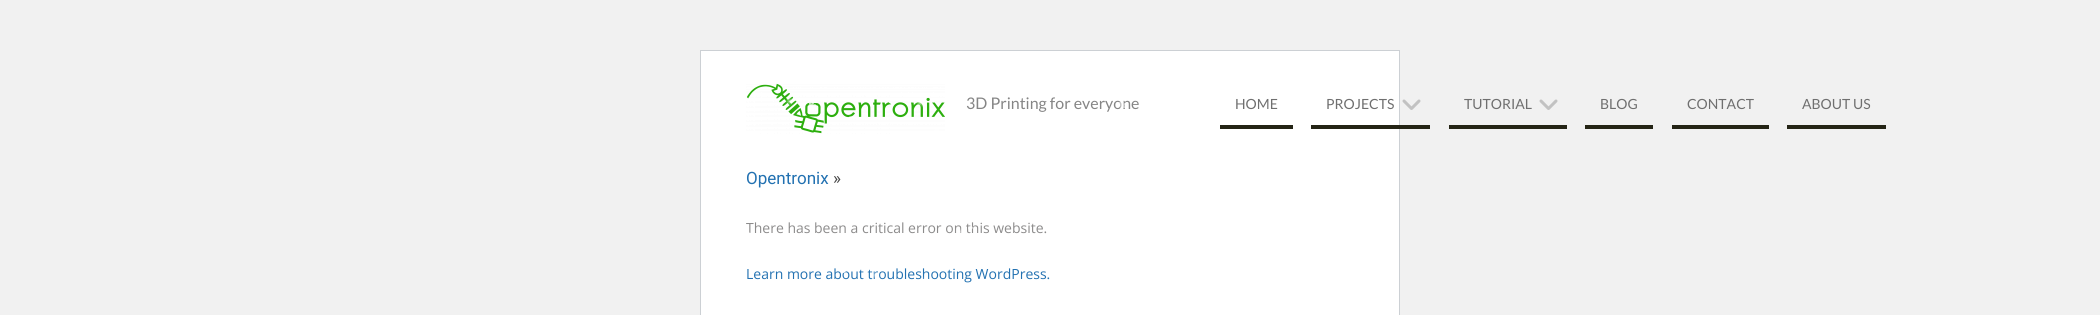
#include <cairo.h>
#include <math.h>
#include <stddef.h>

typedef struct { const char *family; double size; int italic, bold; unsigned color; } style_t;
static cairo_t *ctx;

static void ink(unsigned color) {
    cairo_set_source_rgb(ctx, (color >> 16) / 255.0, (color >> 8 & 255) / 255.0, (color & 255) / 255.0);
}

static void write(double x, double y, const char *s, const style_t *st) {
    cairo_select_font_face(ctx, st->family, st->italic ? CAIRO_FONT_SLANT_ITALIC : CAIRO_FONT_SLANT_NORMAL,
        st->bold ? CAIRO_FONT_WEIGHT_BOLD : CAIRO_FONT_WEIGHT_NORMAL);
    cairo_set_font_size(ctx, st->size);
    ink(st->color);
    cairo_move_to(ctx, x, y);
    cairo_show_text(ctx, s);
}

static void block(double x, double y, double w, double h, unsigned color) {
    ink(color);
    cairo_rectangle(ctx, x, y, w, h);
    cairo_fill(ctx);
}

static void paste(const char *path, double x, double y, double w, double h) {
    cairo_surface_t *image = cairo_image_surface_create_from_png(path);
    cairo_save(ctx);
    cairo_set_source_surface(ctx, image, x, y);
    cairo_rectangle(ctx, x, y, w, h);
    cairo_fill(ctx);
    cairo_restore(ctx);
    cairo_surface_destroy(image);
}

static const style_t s1 = {"Lato", 16, 0, 0, 0x858585};
static const style_t s2 = {"Lato", 14, 0, 0, 0x6f6f6f};
static const style_t s3 = {"Roboto", 17, 0, 0, 0x2271b1};
static const style_t s4 = {"Roboto", 17, 0, 0, 0x444444};
static const style_t s5 = {"Open Sans", 14, 0, 0, 0x8c8b8b};
static const style_t s6 = {"Open Sans", 14, 0, 0, 0x2271b1};

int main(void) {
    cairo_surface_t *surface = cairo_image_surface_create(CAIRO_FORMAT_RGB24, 2100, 315);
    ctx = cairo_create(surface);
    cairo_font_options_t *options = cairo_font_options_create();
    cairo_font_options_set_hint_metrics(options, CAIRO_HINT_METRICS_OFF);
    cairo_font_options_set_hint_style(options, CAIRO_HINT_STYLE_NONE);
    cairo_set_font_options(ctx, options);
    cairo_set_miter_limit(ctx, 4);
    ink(0xf1f1f1);
    cairo_paint(ctx);
    ink(0xffffff);
    cairo_rectangle(ctx, 700.5, 50.5, 699, 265);
    cairo_fill_preserve(ctx);
    ink(0xccd0d4);
    cairo_set_line_width(ctx, 1);
    cairo_stroke(ctx);
    paste("pic1.png", 746, 83, 199, 51);
    write(966, 109, "3D Printing for everyone", &s1);
    write(1235, 109, "HOME", &s2);
    block(1220, 125, 73, 4, 0x242415);
    write(1326, 109, "PROJECTS", &s2);
    paste("pic2.png", 1402, 99, 19, 11);
    block(1311, 125, 119, 4, 0x242415);
    write(1464, 109, "TUTORIAL", &s2);
    paste("pic2.png", 1539, 99, 19, 11);
    block(1449, 125, 118, 4, 0x242415);
    write(1600, 109, "BLOG", &s2);
    block(1585, 125, 68, 4, 0x242415);
    write(1687, 109, "CONTACT", &s2);
    block(1672, 125, 97, 4, 0x242415);
    write(1802, 109, "ABOUT US", &s2);
    block(1787, 125, 99, 4, 0x242415);
    write(746, 184, "Opentronix", &s3);
    write(833, 184, "»", &s4);
    write(746, 233, "There has been a critical error on this website.", &s5);
    write(746, 279, "Learn more about troubleshooting WordPress.", &s6);
    paste("pic3.png", 749, 97, 376, 182);
    cairo_surface_write_to_png(surface, "screenshot.png");
    cairo_font_options_destroy(options);
    cairo_destroy(ctx);
    cairo_surface_destroy(surface);
    return 0;
}
